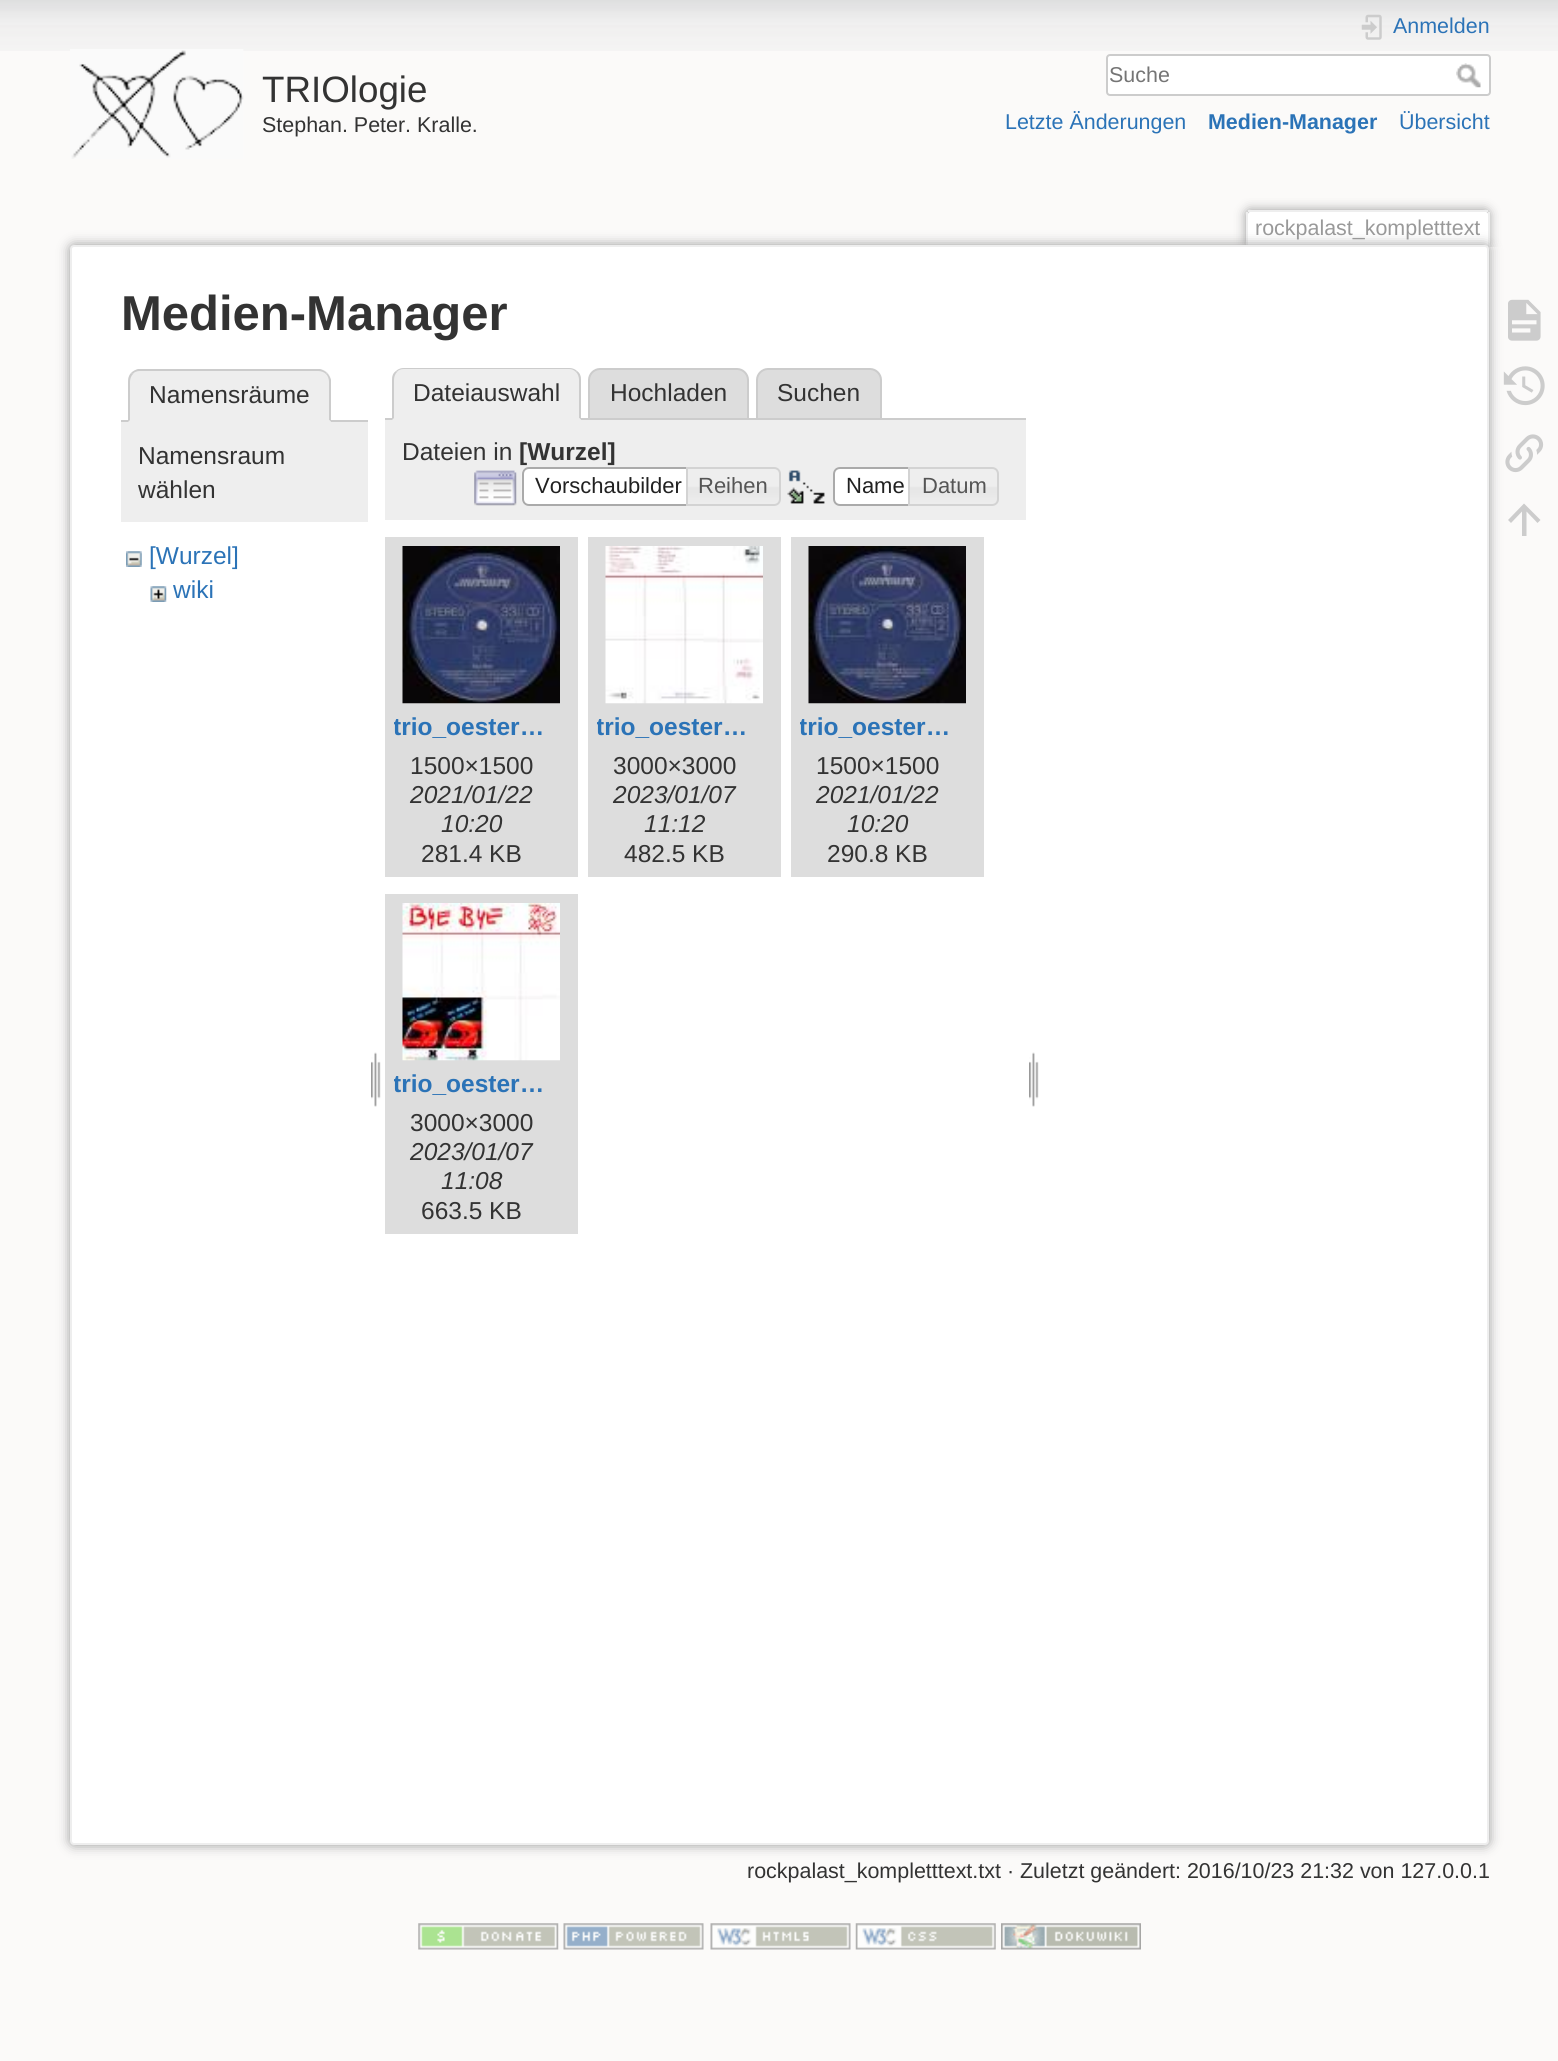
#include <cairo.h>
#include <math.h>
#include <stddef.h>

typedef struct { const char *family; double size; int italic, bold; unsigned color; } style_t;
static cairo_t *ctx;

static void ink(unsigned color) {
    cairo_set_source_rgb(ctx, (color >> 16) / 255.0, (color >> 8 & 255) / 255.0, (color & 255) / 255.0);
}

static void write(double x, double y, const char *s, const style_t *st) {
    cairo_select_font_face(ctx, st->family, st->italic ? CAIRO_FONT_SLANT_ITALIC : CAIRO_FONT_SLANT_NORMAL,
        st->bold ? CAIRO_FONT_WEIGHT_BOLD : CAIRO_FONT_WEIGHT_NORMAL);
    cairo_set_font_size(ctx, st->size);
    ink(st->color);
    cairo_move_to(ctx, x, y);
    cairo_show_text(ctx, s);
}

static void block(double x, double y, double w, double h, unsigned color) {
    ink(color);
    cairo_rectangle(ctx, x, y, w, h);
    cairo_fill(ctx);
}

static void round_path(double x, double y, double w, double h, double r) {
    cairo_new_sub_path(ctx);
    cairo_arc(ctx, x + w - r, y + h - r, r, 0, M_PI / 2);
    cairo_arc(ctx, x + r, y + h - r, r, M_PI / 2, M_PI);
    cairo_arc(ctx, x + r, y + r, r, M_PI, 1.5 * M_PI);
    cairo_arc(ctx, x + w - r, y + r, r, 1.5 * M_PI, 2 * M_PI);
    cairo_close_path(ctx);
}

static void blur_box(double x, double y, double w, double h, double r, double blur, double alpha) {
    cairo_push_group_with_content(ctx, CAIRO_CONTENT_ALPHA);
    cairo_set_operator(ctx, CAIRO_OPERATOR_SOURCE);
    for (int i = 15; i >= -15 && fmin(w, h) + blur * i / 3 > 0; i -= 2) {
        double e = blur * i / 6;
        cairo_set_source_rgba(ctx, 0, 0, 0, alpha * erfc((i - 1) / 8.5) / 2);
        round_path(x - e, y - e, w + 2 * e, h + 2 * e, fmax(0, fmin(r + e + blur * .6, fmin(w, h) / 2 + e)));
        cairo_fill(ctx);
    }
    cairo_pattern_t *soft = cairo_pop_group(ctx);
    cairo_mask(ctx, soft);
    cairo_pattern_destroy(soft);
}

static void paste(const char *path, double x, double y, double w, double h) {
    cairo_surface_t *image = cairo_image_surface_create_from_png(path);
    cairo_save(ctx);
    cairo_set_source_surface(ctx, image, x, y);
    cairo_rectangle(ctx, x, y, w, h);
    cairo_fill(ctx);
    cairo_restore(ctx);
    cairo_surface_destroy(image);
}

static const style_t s1 = {"Liberation Sans", 36.75, 0, 0, 0x333333};
static const style_t s2 = {"Liberation Sans", 21.45, 0, 0, 0x333333};
static const style_t s3 = {"Liberation Sans", 21.45, 0, 0, 0x2b73b7};
static const style_t s4 = {"Liberation Sans", 21.45, 0, 0, 0x757575};
static const style_t s5 = {"Liberation Sans", 21.45, 0, 1, 0x2b73b7};
static const style_t s6 = {"Liberation Sans", 21.45, 0, 0, 0x999999};
static const style_t s7 = {"Liberation Sans", 49, 0, 1, 0x333333};
static const style_t s8 = {"Liberation Sans", 24.5, 0, 0, 0x333333};
static const style_t s9 = {"Liberation Sans", 24.5, 0, 0, 0x2b73b7};
static const style_t s10 = {"Liberation Sans", 24.5, 0, 1, 0x333333};
static const style_t s11 = {"Liberation Sans", 22, 0, 0, 0x212121};
static const style_t s12 = {"Liberation Sans", 22, 0, 0, 0x555555};
static const style_t s13 = {"Liberation Sans", 24.5, 0, 1, 0x2b73b7};
static const style_t s14 = {"Liberation Sans", 24.5, 1, 0, 0x333333};

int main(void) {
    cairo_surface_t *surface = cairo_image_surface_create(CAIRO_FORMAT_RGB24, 1558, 2061);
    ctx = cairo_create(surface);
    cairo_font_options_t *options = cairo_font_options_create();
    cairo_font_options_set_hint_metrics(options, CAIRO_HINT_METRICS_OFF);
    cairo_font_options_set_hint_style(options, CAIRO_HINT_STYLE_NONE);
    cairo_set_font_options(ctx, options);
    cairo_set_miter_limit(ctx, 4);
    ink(0xfbfaf9);
    cairo_paint(ctx);
    paste("pic1.png", 0, 0, 1558, 51);
    paste("pic2.png", 70, 49, 174, 110);
    write(262, 102, "TRIOlogie", &s1);
    write(262, 132, "Stephan. Peter. Kralle.", &s2);
    paste("pic3.png", 1361, 14, 21, 26);
    write(1393, 33, "Anmelden", &s3);
    ink(0xffffff);
    round_path(1107, 55, 383, 40, 3);
    cairo_fill_preserve(ctx);
    ink(0xcccccc);
    cairo_stroke(ctx);
    write(1109, 82, "Suche", &s4);
    paste("pic4.png", 1456, 63, 25, 25);
    write(1005, 129, "Letzte Änderungen", &s3);
    write(1208, 129, "Medien-Manager", &s5);
    write(1399, 129, "Übersicht", &s3);
    cairo_save(ctx);
    cairo_rectangle(ctx, 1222, 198, 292, 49);
    cairo_clip(ctx);
    ink(0x999999);
    blur_box(1246, 210, 243, 37, 4, 5.5, 1);
    cairo_restore(ctx);
    ink(0xffffff);
    cairo_new_path(ctx);
    cairo_move_to(ctx, 1250, 212);
    cairo_line_to(ctx, 1486, 212);
    cairo_curve_to(ctx, 1487, 212, 1488, 213, 1488, 214);
    cairo_line_to(ctx, 1488, 247);
    cairo_line_to(ctx, 1248, 247);
    cairo_line_to(ctx, 1248, 214);
    cairo_curve_to(ctx, 1248, 213, 1249, 212, 1250, 212);
    cairo_close_path(ctx);
    cairo_fill(ctx);
    block(1248, 210, 240, 2, 0xeeeeee);
    block(1488, 212, 2, 35, 0xeeeeee);
    block(1246, 212, 2, 35, 0xeeeeee);
    write(1255, 235, "rockpalast_kompletttext", &s6);
    ink(0x999999);
    blur_box(70, 245, 1419, 1600, 4, 6, 1);
    ink(0xffffff);
    round_path(71, 246, 1417, 1598, 3);
    cairo_fill_preserve(ctx);
    ink(0xeeeeee);
    cairo_stroke(ctx);
    write(121, 330, "Medien-Manager", &s7);
    block(121, 420, 247, 2, 0xcccccc);
    ink(0xeeeeee);
    cairo_new_path(ctx);
    cairo_move_to(ctx, 140, 369);
    cairo_line_to(ctx, 319, 369);
    cairo_curve_to(ctx, 325.5, 369, 331, 374.5, 331, 381);
    cairo_line_to(ctx, 331, 422);
    cairo_line_to(ctx, 128, 422);
    cairo_line_to(ctx, 128, 381);
    cairo_curve_to(ctx, 128, 374.5, 133.5, 369, 140, 369);
    cairo_close_path(ctx);
    cairo_fill(ctx);
    ink(0xcccccc);
    cairo_new_path(ctx);
    cairo_move_to(ctx, 140, 371);
    cairo_curve_to(ctx, 137, 371, 134, 372, 133, 374);
    cairo_line_to(ctx, 131, 373);
    cairo_curve_to(ctx, 133, 371, 135, 370, 138, 369);
    cairo_line_to(ctx, 320, 369);
    cairo_curve_to(ctx, 323, 370, 325, 371, 327, 373);
    cairo_line_to(ctx, 326, 374);
    cairo_curve_to(ctx, 324, 372, 321, 371, 318, 371);
    cairo_close_path(ctx);
    cairo_fill(ctx);
    cairo_new_path(ctx);
    cairo_move_to(ctx, 327, 373);
    cairo_curve_to(ctx, 329, 375, 330, 377, 331, 380);
    cairo_line_to(ctx, 331, 422);
    cairo_line_to(ctx, 329, 420);
    cairo_line_to(ctx, 329, 382);
    cairo_curve_to(ctx, 329, 379, 328, 376, 326, 374);
    cairo_close_path(ctx);
    cairo_fill(ctx);
    ink(0xeeeeee);
    cairo_new_path(ctx);
    cairo_move_to(ctx, 331, 422);
    cairo_line_to(ctx, 128, 422);
    cairo_line_to(ctx, 130, 420);
    cairo_line_to(ctx, 329, 420);
    cairo_close_path(ctx);
    cairo_fill(ctx);
    ink(0xcccccc);
    cairo_new_path(ctx);
    cairo_move_to(ctx, 128, 422);
    cairo_line_to(ctx, 128, 382);
    cairo_curve_to(ctx, 128, 378, 129, 375, 131, 373);
    cairo_line_to(ctx, 133, 374);
    cairo_curve_to(ctx, 131, 376, 130, 379, 130, 382);
    cairo_line_to(ctx, 130, 420);
    cairo_close_path(ctx);
    cairo_fill(ctx);
    write(149, 403, "Namensräume", &s8);
    block(121, 422, 247, 100, 0xeeeeee);
    write(138, 464, "Namensraum", &s8);
    write(138, 498, "wählen", &s8);
    paste("pic5.png", 126, 551, 16, 16);
    write(149, 564, "[Wurzel]", &s9);
    paste("pic6.png", 150, 586, 17, 16);
    write(173, 598, "wiki", &s9);
    paste("pic7.png", 371, 1052, 10, 55);
    ink(0xdddddd);
    cairo_new_path(ctx);
    cairo_move_to(ctx, 600, 369);
    cairo_line_to(ctx, 737, 369);
    cairo_curve_to(ctx, 743, 369, 748, 374, 748, 380);
    cairo_line_to(ctx, 748, 419);
    cairo_line_to(ctx, 589, 419);
    cairo_line_to(ctx, 589, 380);
    cairo_curve_to(ctx, 589, 374, 594, 369, 600, 369);
    cairo_close_path(ctx);
    cairo_fill_preserve(ctx);
    ink(0xcccccc);
    cairo_stroke(ctx);
    ink(0xdddddd);
    cairo_new_path(ctx);
    cairo_move_to(ctx, 768, 369);
    cairo_line_to(ctx, 870, 369);
    cairo_curve_to(ctx, 876, 369, 881, 374, 881, 380);
    cairo_line_to(ctx, 881, 419);
    cairo_line_to(ctx, 757, 419);
    cairo_line_to(ctx, 757, 380);
    cairo_curve_to(ctx, 757, 374, 762, 369, 768, 369);
    cairo_close_path(ctx);
    cairo_fill_preserve(ctx);
    ink(0xcccccc);
    cairo_stroke(ctx);
    block(385, 418, 641, 2, 0xcccccc);
    ink(0xeeeeee);
    cairo_new_path(ctx);
    cairo_move_to(ctx, 404, 368);
    cairo_line_to(ctx, 569, 368);
    cairo_curve_to(ctx, 575.5, 368, 581, 373.5, 581, 380);
    cairo_line_to(ctx, 581, 420);
    cairo_line_to(ctx, 392, 420);
    cairo_line_to(ctx, 392, 380);
    cairo_curve_to(ctx, 392, 373.5, 397.5, 368, 404, 368);
    cairo_close_path(ctx);
    cairo_fill(ctx);
    ink(0xcccccc);
    cairo_new_path(ctx);
    cairo_move_to(ctx, 404, 368);
    cairo_curve_to(ctx, 401, 368, 398, 369, 396, 371);
    cairo_line_to(ctx, 397, 372);
    cairo_curve_to(ctx, 398, 370, 401, 369, 404, 369);
    cairo_line_to(ctx, 569, 369);
    cairo_curve_to(ctx, 572, 369, 574, 370, 576, 372);
    cairo_line_to(ctx, 577, 371);
    cairo_curve_to(ctx, 575, 369, 572, 368, 569, 368);
    cairo_close_path(ctx);
    cairo_fill(ctx);
    cairo_new_path(ctx);
    cairo_move_to(ctx, 577, 371);
    cairo_curve_to(ctx, 580, 373, 581, 376, 581, 380);
    cairo_line_to(ctx, 581, 420);
    cairo_line_to(ctx, 579, 418);
    cairo_line_to(ctx, 579, 380);
    cairo_curve_to(ctx, 579, 377, 578, 374, 576, 372);
    cairo_close_path(ctx);
    cairo_fill(ctx);
    ink(0xeeeeee);
    cairo_new_path(ctx);
    cairo_move_to(ctx, 581, 420);
    cairo_line_to(ctx, 579, 418);
    cairo_line_to(ctx, 394, 418);
    cairo_line_to(ctx, 392, 420);
    cairo_close_path(ctx);
    cairo_fill(ctx);
    ink(0xcccccc);
    cairo_new_path(ctx);
    cairo_move_to(ctx, 392, 420);
    cairo_line_to(ctx, 394, 418);
    cairo_line_to(ctx, 394, 380);
    cairo_curve_to(ctx, 394, 377, 395, 374, 397, 372);
    cairo_line_to(ctx, 396, 371);
    cairo_curve_to(ctx, 393, 373, 392, 376, 392, 380);
    cairo_close_path(ctx);
    cairo_fill(ctx);
    write(413, 401, "Dateiauswahl", &s8);
    write(610, 401, "Hochladen", &s8);
    write(777, 401, "Suchen", &s8);
    block(385, 420, 641, 100, 0xeeeeee);
    write(402, 460, "Dateien in", &s8);
    write(519, 460, "[Wurzel]", &s10);
    paste("pic8.png", 474, 470, 43, 36);
    ink(0xffffff);
    cairo_new_path(ctx);
    cairo_move_to(ctx, 529, 467);
    cairo_line_to(ctx, 695, 467);
    cairo_line_to(ctx, 695, 506);
    cairo_line_to(ctx, 529, 506);
    cairo_curve_to(ctx, 525, 506, 522, 503, 522, 499);
    cairo_line_to(ctx, 522, 474);
    cairo_curve_to(ctx, 522, 470, 525, 467, 529, 467);
    cairo_close_path(ctx);
    cairo_fill(ctx);
    paste("pic9.png", 521, 468, 4, 37);
    cairo_new_path(ctx);
    cairo_move_to(ctx, 529, 468);
    cairo_line_to(ctx, 694, 468);
    cairo_line_to(ctx, 694, 505);
    cairo_line_to(ctx, 529, 505);
    cairo_curve_to(ctx, 525.5, 505, 523, 502.5, 523, 499);
    cairo_line_to(ctx, 523, 474);
    cairo_curve_to(ctx, 523, 470.5, 525.5, 468, 529, 468);
    cairo_close_path(ctx);
    ink(0xaaaaaa);
    cairo_stroke(ctx);
    write(535, 493, "Vorschaubilder", &s11);
    paste("pic10.png", 688, 467, 92, 39);
    cairo_new_path(ctx);
    cairo_move_to(ctx, 687, 468);
    cairo_line_to(ctx, 774, 468);
    cairo_curve_to(ctx, 777.5, 468, 780, 470.5, 780, 474);
    cairo_line_to(ctx, 780, 499);
    cairo_curve_to(ctx, 780, 502.5, 777.5, 505, 774, 505);
    cairo_line_to(ctx, 687, 505);
    cairo_close_path(ctx);
    ink(0xd3d3d3);
    cairo_stroke(ctx);
    write(698, 493, "Reihen", &s12);
    paste("pic11.png", 787, 470, 38, 34);
    ink(0xffffff);
    cairo_new_path(ctx);
    cairo_move_to(ctx, 840, 467);
    cairo_line_to(ctx, 917, 467);
    cairo_line_to(ctx, 917, 506);
    cairo_line_to(ctx, 840, 506);
    cairo_curve_to(ctx, 836, 506, 833, 503, 833, 499);
    cairo_line_to(ctx, 833, 474);
    cairo_curve_to(ctx, 833, 470, 836, 467, 840, 467);
    cairo_close_path(ctx);
    cairo_fill(ctx);
    block(834, 469, 1, 1, 0xf8f8f8);
    cairo_new_path(ctx);
    cairo_move_to(ctx, 840, 468);
    cairo_line_to(ctx, 916, 468);
    cairo_line_to(ctx, 916, 505);
    cairo_line_to(ctx, 840, 505);
    cairo_curve_to(ctx, 836.5, 505, 834, 502.5, 834, 499);
    cairo_line_to(ctx, 834, 474);
    cairo_curve_to(ctx, 834, 470.5, 836.5, 468, 840, 468);
    cairo_close_path(ctx);
    ink(0xaaaaaa);
    cairo_stroke(ctx);
    write(846, 493, "Name", &s11);
    paste("pic12.png", 910, 467, 89, 39);
    cairo_new_path(ctx);
    cairo_move_to(ctx, 909, 468);
    cairo_line_to(ctx, 992, 468);
    cairo_curve_to(ctx, 995.5, 468, 998, 470.5, 998, 474);
    cairo_line_to(ctx, 998, 499);
    cairo_curve_to(ctx, 998, 502.5, 995.5, 505, 992, 505);
    cairo_line_to(ctx, 909, 505);
    cairo_close_path(ctx);
    ink(0xd3d3d3);
    cairo_stroke(ctx);
    write(922, 493, "Datum", &s12);
    block(385, 537, 193, 340, 0xdddddd);
    paste("pic13.png", 402, 546, 158, 158);
    cairo_save(ctx);
    cairo_rectangle(ctx, 394, 704, 157, 47);
    cairo_clip(ctx);
    write(393, 735, "trio_oester…", &s13);
    cairo_restore(ctx);
    write(410, 774, "1500×1500", &s8);
    write(410, 803, "2021/01/22", &s14);
    write(441, 832, "10:20", &s14);
    write(421, 862, "281.4 KB", &s8);
    block(588, 537, 193, 340, 0xdddddd);
    paste("pic14.png", 605, 546, 158, 158);
    cairo_save(ctx);
    cairo_rectangle(ctx, 597, 704, 157, 47);
    cairo_clip(ctx);
    write(596, 735, "trio_oester…", &s13);
    cairo_restore(ctx);
    write(613, 774, "3000×3000", &s8);
    write(613, 803, "2023/01/07", &s14);
    write(644, 832, "11:12", &s14);
    write(624, 862, "482.5 KB", &s8);
    block(791, 537, 193, 340, 0xdddddd);
    paste("pic15.png", 808, 546, 158, 158);
    cairo_save(ctx);
    cairo_rectangle(ctx, 800, 704, 157, 47);
    cairo_clip(ctx);
    write(799, 735, "trio_oester…", &s13);
    cairo_restore(ctx);
    write(816, 774, "1500×1500", &s8);
    write(816, 803, "2021/01/22", &s14);
    write(847, 832, "10:20", &s14);
    write(827, 862, "290.8 KB", &s8);
    block(385, 894, 193, 340, 0xdddddd);
    paste("pic16.png", 402, 903, 158, 158);
    cairo_save(ctx);
    cairo_rectangle(ctx, 394, 1061, 157, 47);
    cairo_clip(ctx);
    write(393, 1092, "trio_oester…", &s13);
    cairo_restore(ctx);
    write(410, 1131, "3000×3000", &s8);
    write(410, 1160, "2023/01/07", &s14);
    write(441, 1189, "11:08", &s14);
    write(421, 1219, "663.5 KB", &s8);
    paste("pic7.png", 1029, 1052, 10, 55);
    write(747, 1878, "rockpalast_kompletttext.txt · Zuletzt geändert: 2016/10/23 21:32 von 127.0.0.1", &s2);
    paste("pic17.png", 1508, 299, 33, 42);
    paste("pic18.png", 1503, 366, 42, 40);
    paste("pic19.png", 1505, 434, 39, 39);
    ink(0xcccccc);
    cairo_new_path(ctx);
    cairo_move_to(ctx, 1526.5, 536);
    cairo_line_to(ctx, 1522, 536);
    cairo_line_to(ctx, 1522, 511.5);
    cairo_line_to(ctx, 1511, 523);
    cairo_line_to(ctx, 1508, 520);
    cairo_line_to(ctx, 1524, 503.5);
    cairo_line_to(ctx, 1540.5, 520);
    cairo_line_to(ctx, 1537.5, 523);
    cairo_line_to(ctx, 1526.5, 511.5);
    cairo_close_path(ctx);
    cairo_fill(ctx);
    paste("pic20.png", 418, 1923, 141, 27);
    paste("pic21.png", 563, 1923, 141, 27);
    paste("pic22.png", 710, 1923, 141, 27);
    paste("pic23.png", 855, 1923, 141, 27);
    paste("pic24.png", 1001, 1923, 140, 27);
    cairo_surface_write_to_png(surface, "screenshot.png");
    cairo_font_options_destroy(options);
    cairo_destroy(ctx);
    cairo_surface_destroy(surface);
    return 0;
}
